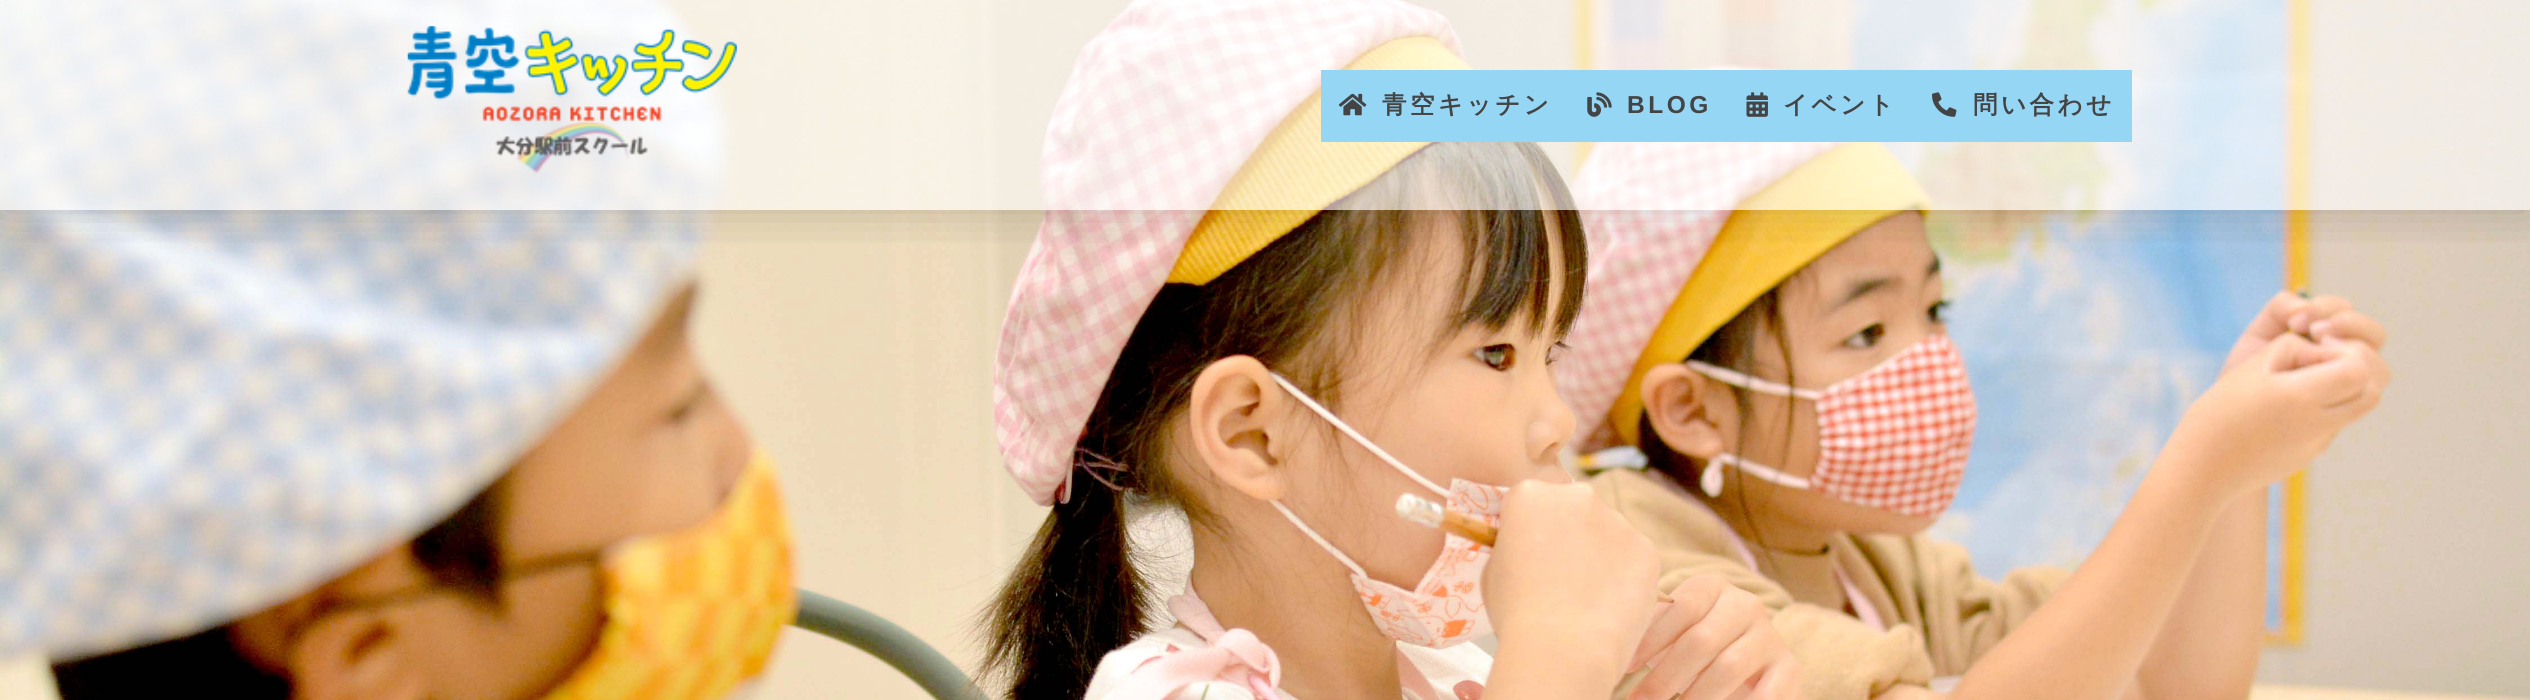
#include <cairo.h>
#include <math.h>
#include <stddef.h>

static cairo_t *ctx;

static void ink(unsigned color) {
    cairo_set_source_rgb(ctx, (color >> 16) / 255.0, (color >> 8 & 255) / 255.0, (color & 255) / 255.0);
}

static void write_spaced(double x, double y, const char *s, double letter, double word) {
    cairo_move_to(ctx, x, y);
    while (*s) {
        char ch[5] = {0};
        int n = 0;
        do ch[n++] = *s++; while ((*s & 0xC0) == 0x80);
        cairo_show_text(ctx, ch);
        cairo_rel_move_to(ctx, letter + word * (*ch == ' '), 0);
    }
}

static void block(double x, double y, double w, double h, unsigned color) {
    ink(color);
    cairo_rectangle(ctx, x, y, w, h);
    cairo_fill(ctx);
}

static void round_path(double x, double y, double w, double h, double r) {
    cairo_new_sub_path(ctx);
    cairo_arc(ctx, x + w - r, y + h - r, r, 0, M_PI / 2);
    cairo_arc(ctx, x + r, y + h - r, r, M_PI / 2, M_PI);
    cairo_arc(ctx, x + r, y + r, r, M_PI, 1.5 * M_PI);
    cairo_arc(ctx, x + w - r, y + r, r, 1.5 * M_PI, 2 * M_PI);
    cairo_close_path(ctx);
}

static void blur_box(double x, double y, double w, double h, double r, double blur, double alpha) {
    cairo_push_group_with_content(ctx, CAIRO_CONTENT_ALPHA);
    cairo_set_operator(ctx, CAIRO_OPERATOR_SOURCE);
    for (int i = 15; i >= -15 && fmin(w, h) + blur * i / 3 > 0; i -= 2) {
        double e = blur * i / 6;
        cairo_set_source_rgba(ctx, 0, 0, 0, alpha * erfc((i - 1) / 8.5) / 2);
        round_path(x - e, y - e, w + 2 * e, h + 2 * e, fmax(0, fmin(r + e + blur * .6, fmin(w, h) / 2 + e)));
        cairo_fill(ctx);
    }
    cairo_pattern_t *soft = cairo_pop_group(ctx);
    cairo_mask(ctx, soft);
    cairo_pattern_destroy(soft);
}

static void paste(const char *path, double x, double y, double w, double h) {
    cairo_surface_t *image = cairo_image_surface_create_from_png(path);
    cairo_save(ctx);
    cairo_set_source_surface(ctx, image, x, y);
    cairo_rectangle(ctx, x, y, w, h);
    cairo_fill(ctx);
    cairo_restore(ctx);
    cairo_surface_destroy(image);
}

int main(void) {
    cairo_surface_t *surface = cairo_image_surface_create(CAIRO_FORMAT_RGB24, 2530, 700);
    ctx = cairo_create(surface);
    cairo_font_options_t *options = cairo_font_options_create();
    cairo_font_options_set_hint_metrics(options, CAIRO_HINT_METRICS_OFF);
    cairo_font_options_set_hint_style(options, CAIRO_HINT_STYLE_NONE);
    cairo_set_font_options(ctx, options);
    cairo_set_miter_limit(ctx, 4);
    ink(0xffffff);
    cairo_paint(ctx);
    paste("pic1.png", 0, 0, 2530, 700);
    cairo_save(ctx);
    cairo_rectangle(ctx, 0, 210, 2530, 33);
    cairo_clip(ctx);
    ink(0x000000);
    blur_box(0, 0, 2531, 210, 0, 26, 0.2);
    cairo_restore(ctx);
    cairo_set_source_rgba(ctx, 1, 1, 1, 0.62);
    cairo_rectangle(ctx, 0, 0, 2530, 210);
    cairo_fill(ctx);
    paste("pic2.png", 407, 26, 330, 148);
    block(1321, 70, 811, 72, 0x96d6f5);
    paste("pic3.png", 1338, 93, 29, 23);
    cairo_select_font_face(ctx, "WenQuanYi Zen Hei", CAIRO_FONT_SLANT_NORMAL, CAIRO_FONT_WEIGHT_BOLD);
    cairo_set_font_size(ctx, 24.5);
    ink(0x444444);
    write_spaced(1382, 113, "青空キッチン", 3.5, 0);
    paste("pic4.png", 1587, 92, 25, 25);
    cairo_select_font_face(ctx, "Liberation Sans", CAIRO_FONT_SLANT_NORMAL, CAIRO_FONT_WEIGHT_BOLD);
    write_spaced(1627, 113, "BLOG", 3.5, 0);
    paste("pic5.png", 1746, 92, 22, 25);
    cairo_select_font_face(ctx, "WenQuanYi Zen Hei", CAIRO_FONT_SLANT_NORMAL, CAIRO_FONT_WEIGHT_BOLD);
    write_spaced(1783, 113, "イベント", 3.5, 0);
    paste("pic6.png", 1932, 92, 25, 25);
    write_spaced(1973, 113, "問い合わせ", 3.5, 0);
    cairo_surface_write_to_png(surface, "screenshot.png");
    cairo_font_options_destroy(options);
    cairo_destroy(ctx);
    cairo_surface_destroy(surface);
    return 0;
}
